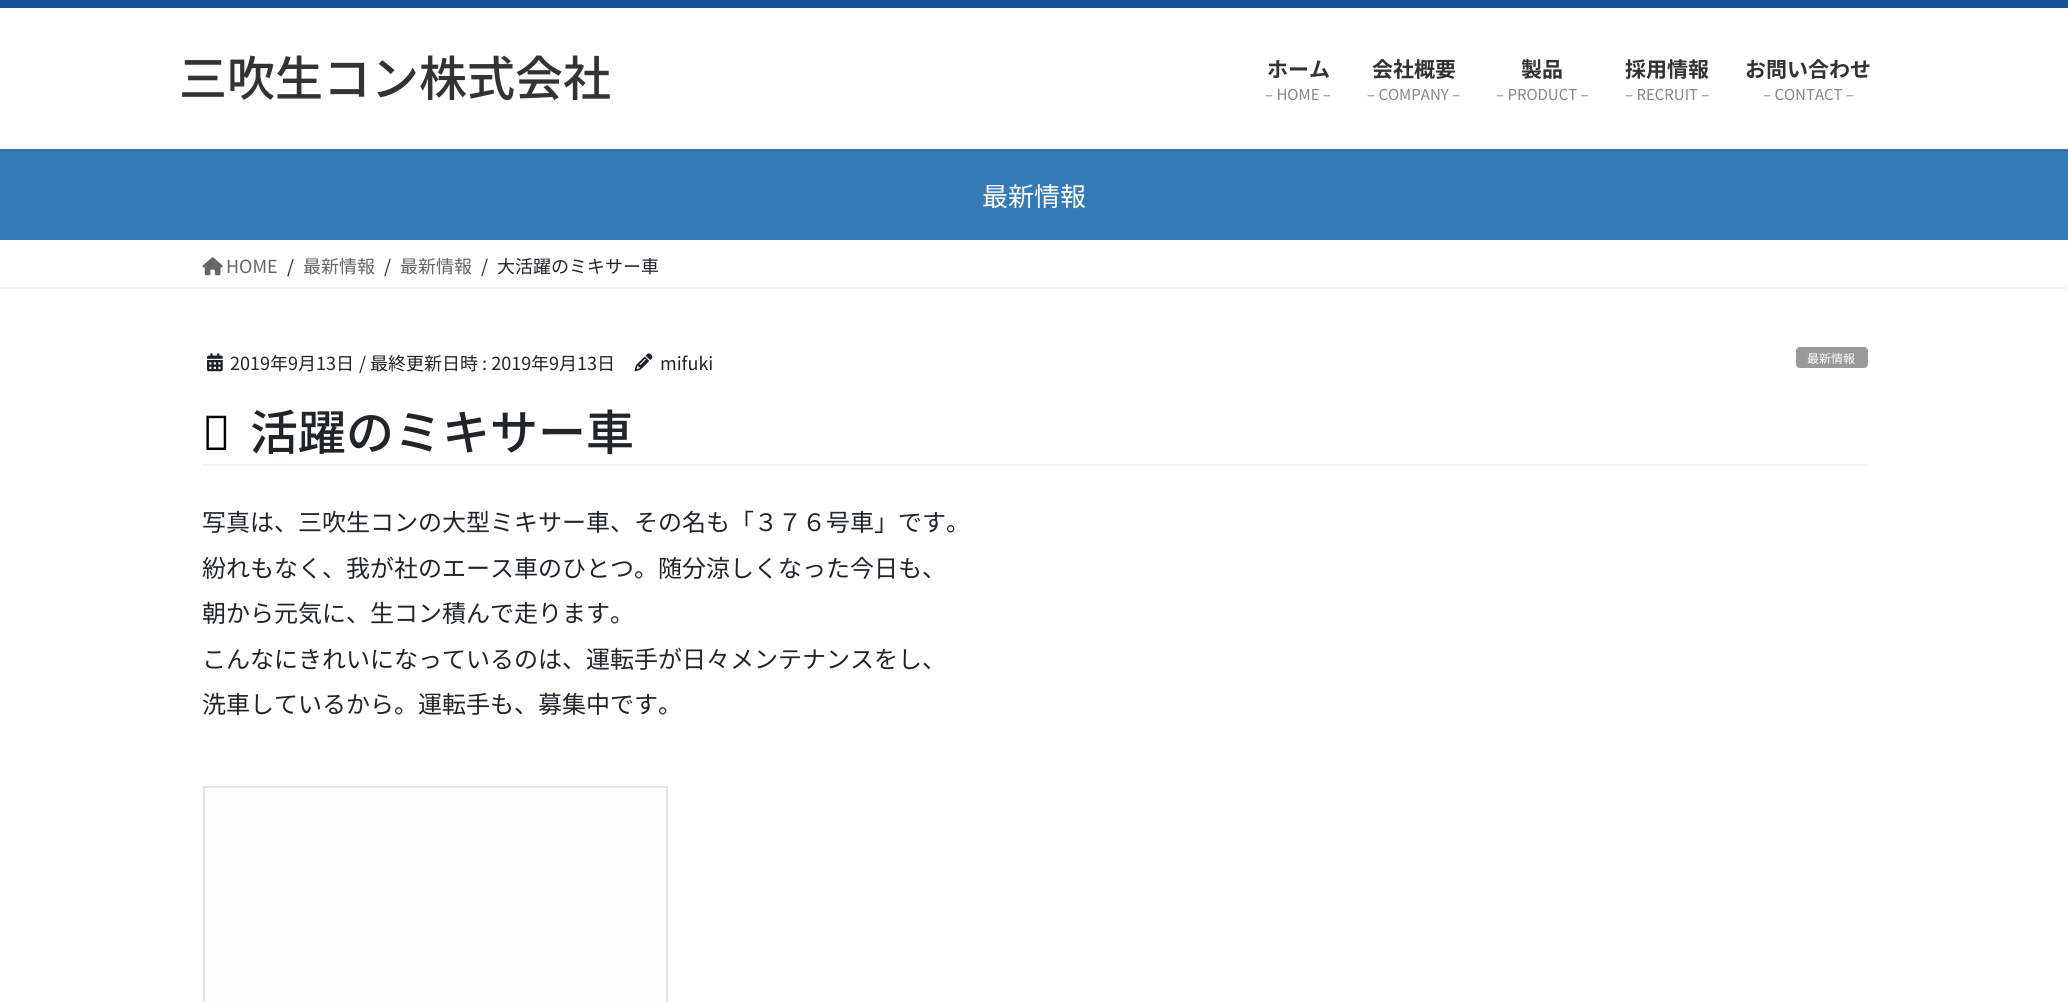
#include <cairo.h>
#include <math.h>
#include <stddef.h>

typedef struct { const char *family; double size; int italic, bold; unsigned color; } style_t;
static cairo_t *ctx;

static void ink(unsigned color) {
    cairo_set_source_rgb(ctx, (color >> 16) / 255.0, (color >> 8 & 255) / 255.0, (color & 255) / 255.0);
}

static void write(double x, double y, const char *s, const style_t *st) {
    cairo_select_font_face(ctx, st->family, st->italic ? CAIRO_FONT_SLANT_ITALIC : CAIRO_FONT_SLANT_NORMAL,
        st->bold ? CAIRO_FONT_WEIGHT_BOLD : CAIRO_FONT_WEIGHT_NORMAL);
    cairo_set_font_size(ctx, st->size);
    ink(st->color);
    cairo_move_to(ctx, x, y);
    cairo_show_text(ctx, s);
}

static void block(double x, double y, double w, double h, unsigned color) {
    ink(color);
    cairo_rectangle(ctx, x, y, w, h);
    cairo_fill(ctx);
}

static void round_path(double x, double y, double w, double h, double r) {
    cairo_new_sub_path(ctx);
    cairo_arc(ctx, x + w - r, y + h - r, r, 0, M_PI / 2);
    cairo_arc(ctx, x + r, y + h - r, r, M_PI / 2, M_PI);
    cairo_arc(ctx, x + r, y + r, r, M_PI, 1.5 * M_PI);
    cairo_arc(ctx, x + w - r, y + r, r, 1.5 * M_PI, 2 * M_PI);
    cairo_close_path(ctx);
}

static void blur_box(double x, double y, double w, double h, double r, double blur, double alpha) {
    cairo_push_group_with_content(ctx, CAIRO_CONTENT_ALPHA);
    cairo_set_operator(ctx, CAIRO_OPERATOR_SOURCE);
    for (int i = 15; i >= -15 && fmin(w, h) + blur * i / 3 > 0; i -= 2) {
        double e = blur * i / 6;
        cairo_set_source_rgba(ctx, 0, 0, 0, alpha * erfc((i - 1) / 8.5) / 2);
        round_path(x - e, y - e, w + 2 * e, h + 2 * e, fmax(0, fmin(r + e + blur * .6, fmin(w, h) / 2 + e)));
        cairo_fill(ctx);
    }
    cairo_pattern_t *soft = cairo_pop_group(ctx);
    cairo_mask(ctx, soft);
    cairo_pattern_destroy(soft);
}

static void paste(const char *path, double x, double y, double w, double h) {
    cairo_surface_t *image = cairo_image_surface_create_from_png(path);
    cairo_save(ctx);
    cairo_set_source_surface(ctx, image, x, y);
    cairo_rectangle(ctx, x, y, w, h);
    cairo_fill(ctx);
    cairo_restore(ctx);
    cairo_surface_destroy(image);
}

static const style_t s1 = {"Noto Sans JP Medium", 48, 0, 0, 0x333333};
static const style_t s2 = {"Noto Sans JP", 21, 0, 1, 0x333333};
static const style_t s3 = {"Noto Sans JP", 15, 0, 0, 0x858585};
static const style_t s4 = {"Noto Sans JP", 26, 0, 0, 0xffffff};
static const style_t s5 = {"Noto Sans JP", 18, 0, 0, 0x666666};
static const style_t s6 = {"Noto Sans JP", 18, 0, 0, 0x212529};
static const style_t s7 = {"Noto Sans JP", 12, 0, 0, 0xffffff};
static const style_t s8 = {"Noto Sans Medium", 48, 0, 0, 0x000000};
static const style_t s9 = {"Noto Sans JP Medium", 48, 0, 0, 0x212529};
static const style_t s10 = {"Noto Sans JP", 24, 0, 0, 0x212529};

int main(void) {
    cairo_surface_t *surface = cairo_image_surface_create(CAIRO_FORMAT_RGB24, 2068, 1002);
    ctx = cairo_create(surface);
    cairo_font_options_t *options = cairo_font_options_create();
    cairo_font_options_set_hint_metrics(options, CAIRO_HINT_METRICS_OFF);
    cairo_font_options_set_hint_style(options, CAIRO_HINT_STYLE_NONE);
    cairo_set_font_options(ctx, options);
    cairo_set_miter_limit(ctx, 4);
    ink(0xffffff);
    cairo_paint(ctx);
    block(0, 149, 2068, 91, 0x337ab7);
    ink(0x000000);
    blur_box(0, 2, 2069, 148, 0, 2, 0.1);
    block(0, 8, 2068, 141, 0xffffff);
    block(0, 0, 2068, 8, 0x164e9a);
    write(179, 96, "三吹生コン株式会社", &s1);
    write(1267, 77, "ホーム", &s2);
    write(1265, 100, "– HOME –", &s3);
    write(1372, 77, "会社概要", &s2);
    write(1367, 100, "– COMPANY –", &s3);
    write(1521, 77, "製品", &s2);
    write(1496, 100, "– PRODUCT –", &s3);
    write(1625, 77, "採用情報", &s2);
    write(1625, 100, "– RECRUIT –", &s3);
    write(1745, 77, "お問い合わせ", &s2);
    write(1763, 100, "– CONTACT –", &s3);
    write(982, 206, "最新情報", &s4);
    block(0, 287, 2068, 2, 0xf2f2f2);
    paste("pic1.png", 202, 257, 21, 19);
    write(226, 273, "HOME", &s5);
    write(287, 273, "/", &s6);
    write(303, 273, "最新情報", &s5);
    write(384, 273, "/", &s6);
    write(400, 273, "最新情報", &s5);
    write(481, 273, "/", &s6);
    write(497, 273, "大活躍のミキサー車", &s6);
    block(203, 464, 1665, 2, 0xf2f2f2);
    paste("pic2.png", 207, 353, 16, 19);
    write(230, 370, "2019年9月13日", &s6);
    write(359, 370, "/ 最終更新日時 : 2019年9月13日", &s6);
    paste("pic3.png", 634, 353, 19, 19);
    write(660, 370, "mifuki", &s6);
    ink(0x999999);
    round_path(1796, 347, 72, 21, 4);
    cairo_fill(ctx);
    write(1807, 363, "最新情報", &s7);
    write(202, 450, "大", &s8);
    write(250, 450, "活躍のミキサー車", &s9);
    write(202, 531, "写真は、三吹生コンの大型ミキサー車、その名も「３７６号車」です。", &s10);
    write(202, 577, "紛れもなく、我が社のエース車のひとつ。随分涼しくなった今日も、", &s10);
    write(202, 622, "朝から元気に、生コン積んで走ります。", &s10);
    write(202, 668, "こんなにきれいになっているのは、運転手が日々メンテナンスをし、", &s10);
    write(202, 713, "洗車しているから。運転手も、募集中です。", &s10);
    ink(0xfcfcfc);
    cairo_rectangle(ctx, 204, 787, 463, 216);
    cairo_fill_preserve(ctx);
    ink(0xe5e5e5);
    cairo_stroke(ctx);
    cairo_surface_write_to_png(surface, "screenshot.png");
    cairo_font_options_destroy(options);
    cairo_destroy(ctx);
    cairo_surface_destroy(surface);
    return 0;
}
